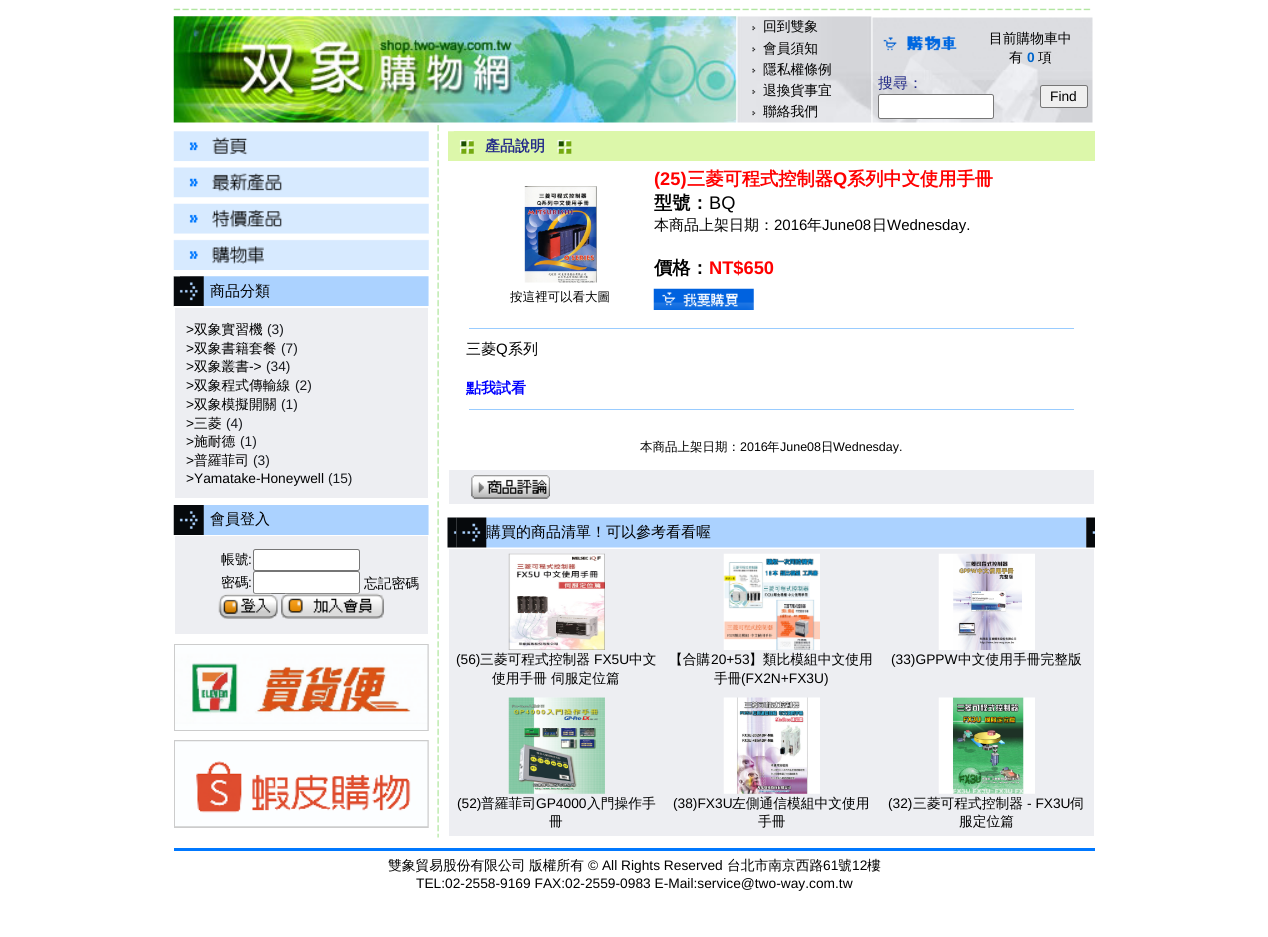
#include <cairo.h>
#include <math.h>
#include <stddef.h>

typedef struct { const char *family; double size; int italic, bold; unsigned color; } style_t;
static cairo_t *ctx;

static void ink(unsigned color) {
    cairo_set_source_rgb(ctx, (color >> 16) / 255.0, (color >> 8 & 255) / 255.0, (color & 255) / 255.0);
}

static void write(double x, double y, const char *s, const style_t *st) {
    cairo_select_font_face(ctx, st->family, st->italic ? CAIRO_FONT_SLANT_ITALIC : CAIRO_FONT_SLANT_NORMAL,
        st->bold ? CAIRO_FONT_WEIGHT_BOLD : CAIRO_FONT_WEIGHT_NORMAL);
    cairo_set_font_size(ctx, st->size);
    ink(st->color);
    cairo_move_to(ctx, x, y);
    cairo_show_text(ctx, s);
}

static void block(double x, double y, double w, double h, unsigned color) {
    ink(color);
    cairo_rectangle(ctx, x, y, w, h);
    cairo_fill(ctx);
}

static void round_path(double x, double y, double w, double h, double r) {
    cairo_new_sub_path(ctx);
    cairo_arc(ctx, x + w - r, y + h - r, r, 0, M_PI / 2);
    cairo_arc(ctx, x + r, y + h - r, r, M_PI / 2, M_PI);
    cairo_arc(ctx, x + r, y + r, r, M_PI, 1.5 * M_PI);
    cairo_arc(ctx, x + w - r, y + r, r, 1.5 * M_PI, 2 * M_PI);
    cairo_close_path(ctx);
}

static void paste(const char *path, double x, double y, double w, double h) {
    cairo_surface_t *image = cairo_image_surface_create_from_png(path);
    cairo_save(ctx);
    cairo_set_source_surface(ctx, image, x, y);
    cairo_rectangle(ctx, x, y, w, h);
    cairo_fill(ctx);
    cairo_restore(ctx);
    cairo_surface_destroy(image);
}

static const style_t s1 = {"WenQuanYi Zen Hei Medium", 13.75, 0, 0, 0x000000};
static const style_t s2 = {"Liberation Sans", 13.75, 0, 1, 0x0066cc};
static const style_t s3 = {"WenQuanYi Zen Hei Medium", 15, 0, 0, 0x252c89};
static const style_t s4 = {"Liberation Sans", 13.75, 0, 0, 0x000000};
static const style_t s5 = {"WenQuanYi Zen Hei Medium", 15, 0, 0, 0x000000};
static const style_t s6 = {"Liberation Sans", 13.75, 0, 0, 0x17191d};
static const style_t s7 = {"WenQuanYi Zen Hei", 15, 0, 1, 0x252c89};
static const style_t s8 = {"Liberation Sans", 18.25, 0, 1, 0xff0000};
static const style_t s9 = {"WenQuanYi Zen Hei", 18.25, 0, 1, 0xff0000};
static const style_t s10 = {"WenQuanYi Zen Hei", 18.25, 0, 1, 0x000000};
static const style_t s11 = {"Liberation Sans", 18.25, 0, 0, 0x000000};
static const style_t s12 = {"Liberation Sans", 15, 0, 0, 0x000000};
static const style_t s13 = {"WenQuanYi Zen Hei Medium", 12.5, 0, 0, 0x000000};
static const style_t s14 = {"WenQuanYi Zen Hei", 15, 0, 1, 0x0000ff};
static const style_t s15 = {"Liberation Sans", 12.5, 0, 0, 0x000000};

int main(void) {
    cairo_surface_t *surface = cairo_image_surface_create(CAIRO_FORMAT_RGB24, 1268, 937);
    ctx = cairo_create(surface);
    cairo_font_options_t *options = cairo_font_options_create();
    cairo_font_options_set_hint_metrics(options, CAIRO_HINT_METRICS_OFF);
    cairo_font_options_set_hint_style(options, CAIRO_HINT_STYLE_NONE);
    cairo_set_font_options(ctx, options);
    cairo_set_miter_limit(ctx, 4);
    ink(0xffffff);
    cairo_paint(ctx);
    paste("pic3.png", 737, 16, 135, 107);
    paste("pic1.png", 173, 8, 918, 9);
    paste("pic2.png", 173, 16, 564, 107);
    paste("pic4.png", 752, 26, 4, 5);
    write(763, 31, "回到雙象", &s1);
    paste("pic5.png", 752, 47, 4, 5);
    write(763, 53, "會員須知", &s1);
    paste("pic6.png", 752, 68, 4, 5);
    write(763, 74, "隱私權條例", &s1);
    paste("pic7.png", 752, 89, 4, 5);
    write(763, 95, "退換貨事宜", &s1);
    paste("pic4.png", 752, 111, 4, 5);
    write(763, 116, "聯絡我們", &s1);
    paste("pic8.png", 872, 17, 221, 53);
    write(989, 43, "目前購物車中", &s1);
    write(1009, 62, "有", &s1);
    write(1027, 62, "0", &s2);
    write(1038, 62, "項", &s1);
    paste("pic9.png", 872, 70, 221, 53);
    write(878, 88, "搜尋：", &s3);
    ink(0xffffff);
    round_path(878.5, 94.5, 115, 24, 2);
    cairo_fill_preserve(ctx);
    ink(0x767676);
    cairo_set_line_width(ctx, 1);
    cairo_stroke(ctx);
    ink(0xefefef);
    round_path(1040.5, 85.5, 47, 22, 2);
    cairo_fill_preserve(ctx);
    ink(0x767676);
    cairo_stroke(ctx);
    write(1050, 101, "Find", &s4);
    paste("pic14.png", 173, 276, 256, 31);
    block(174, 306, 255, 1, 0xffffff);
    paste("pic15.png", 173, 505, 256, 30);
    block(174, 644, 255, 87, 0xcccccc);
    block(174, 740, 255, 88, 0xcccccc);
    paste("pic20.png", 428, 125, 11, 713);
    paste("pic10.png", 173, 131, 256, 31);
    paste("pic11.png", 173, 161, 256, 37);
    paste("pic12.png", 173, 197, 256, 37);
    paste("pic13.png", 173, 233, 256, 37);
    block(174, 276, 6, 1, 0x727476);
    write(210, 296, "商品分類", &s5);
    block(175, 308, 253, 190, 0xedeef2);
    write(186, 334, ">", &s4);
    write(194, 334, "双象實習機", &s1);
    write(267, 334, "(3)", &s6);
    write(186, 353, ">", &s4);
    write(194, 353, "双象書籍套餐", &s1);
    write(281, 353, "(7)", &s6);
    write(186, 371, ">", &s4);
    write(194, 371, "双象叢書", &s1);
    write(249, 371, "->", &s4);
    write(266, 371, "(34)", &s6);
    write(186, 390, ">", &s4);
    write(194, 390, "双象程式傳輸線", &s1);
    write(295, 390, "(2)", &s6);
    write(186, 409, ">", &s4);
    write(194, 409, "双象模擬開關", &s1);
    write(281, 409, "(1)", &s6);
    write(186, 428, ">", &s4);
    write(194, 428, "三菱", &s1);
    write(226, 428, "(4)", &s6);
    write(186, 446, ">", &s4);
    write(194, 446, "施耐德", &s1);
    write(240, 446, "(1)", &s6);
    write(186, 465, ">", &s4);
    write(194, 465, "普羅菲司", &s1);
    write(253, 465, "(3)", &s6);
    write(186, 483, ">Yamatake-Honeywell", &s4);
    write(328, 483, "(15)", &s6);
    write(210, 524, "會員登入", &s5);
    block(175, 536, 253, 98, 0xedeef2);
    write(221, 564, "帳號", &s1);
    write(248, 564, ":", &s4);
    ink(0xffffff);
    round_path(253.5, 549.5, 106, 21, 2);
    cairo_fill_preserve(ctx);
    ink(0x767676);
    cairo_stroke(ctx);
    write(221, 587, "密碼", &s1);
    write(248, 587, ":", &s4);
    ink(0xffffff);
    round_path(253.5, 571.5, 106, 22, 2);
    cairo_fill_preserve(ctx);
    ink(0x767676);
    cairo_stroke(ctx);
    write(364, 588, "忘記密碼", &s1);
    paste("pic16.png", 218, 593, 60, 26);
    paste("pic17.png", 281, 593, 103, 26);
    paste("pic18.png", 175, 645, 253, 85);
    paste("pic19.png", 175, 741, 253, 86);
    paste("pic21.png", 437, 472, 2, 18);
    block(448, 131, 647, 30, 0xdcf7aa);
    paste("pic22.png", 448, 131, 6, 1);
    paste("pic23.png", 459, 139, 15, 15);
    write(485, 151, "產品說明", &s7);
    paste("pic24.png", 557, 139, 15, 15);
    write(654, 185, "(25)", &s8);
    write(687, 185, "三菱可程式控制器", &s9);
    write(833, 185, "Q", &s8);
    write(847, 185, "系列中文使用手冊", &s9);
    write(654, 209, "型號：", &s10);
    write(709, 209, "BQ", &s11);
    write(654, 230, "本商品上架日期：", &s5);
    write(774, 230, "2016", &s12);
    write(807, 230, "年", &s5);
    write(822, 230, "June08", &s12);
    write(872, 230, "日", &s5);
    write(887, 230, "Wednesday.", &s12);
    write(654, 274, "價格：", &s10);
    write(709, 274, "NT$650", &s8);
    paste("pic25.png", 653, 288, 101, 22);
    paste("pic26.png", 524, 186, 73, 97);
    write(510, 301, "按這裡可以看大圖", &s13);
    block(469, 328, 605, 1, 0x99ccff);
    write(466, 354, "三菱", &s5);
    write(496, 354, "Q", &s12);
    write(508, 354, "系列", &s5);
    write(466, 393, "點我試看", &s14);
    block(469, 409, 605, 1, 0x99ccff);
    write(640, 451, "本商品上架日期：", &s13);
    write(740, 451, "2016", &s15);
    write(767, 451, "年", &s13);
    write(780, 451, "June08", &s15);
    write(821, 451, "日", &s13);
    write(833, 451, "Wednesday.", &s15);
    block(449, 470, 645, 34, 0xedeef2);
    paste("pic27.png", 471, 475, 79, 24);
    paste("pic28.png", 447, 517, 10, 31);
    paste("pic29.png", 456, 517, 631, 31);
    write(486, 537, "購買的商品清單！可以參考看看喔", &s5);
    paste("pic30.png", 1086, 517, 9, 31);
    block(449, 549, 645, 287, 0xedeef2);
    paste("pic31.png", 508, 553, 97, 97);
    write(456, 664, "(56)", &s4);
    write(480, 664, "三菱可程式控制器", &s1);
    write(594, 664, "FX5U", &s4);
    write(629, 664, "中文", &s1);
    write(492, 683, "使用手冊 伺服定位篇", &s1);
    paste("pic32.png", 723, 553, 97, 97);
    write(669, 664, "【合購", &s1);
    write(711, 664, "20+53", &s4);
    write(749, 664, "】類比模組中文使用", &s1);
    write(714, 683, "手冊", &s1);
    write(741, 683, "(FX2N+FX3U)", &s4);
    paste("pic33.png", 938, 553, 97, 97);
    write(891, 664, "(33)GPPW", &s4);
    write(958, 664, "中文使用手冊完整版", &s1);
    paste("pic34.png", 508, 697, 97, 97);
    write(457, 808, "(52)", &s4);
    write(481, 808, "普羅菲司", &s1);
    write(536, 808, "GP4000", &s4);
    write(587, 808, "入門操作手", &s1);
    write(549, 826, "冊", &s1);
    paste("pic35.png", 723, 697, 97, 97);
    write(673, 808, "(38)FX3U", &s4);
    write(732, 808, "左側通信模組中文使用", &s1);
    write(758, 826, "手冊", &s1);
    paste("pic36.png", 938, 697, 97, 97);
    write(888, 808, "(32)", &s4);
    write(913, 808, "三菱可程式控制器", &s1);
    write(1027, 808, "- FX3U", &s4);
    write(1070, 808, "伺", &s1);
    write(959, 826, "服定位篇", &s1);
    block(174, 848, 921, 3, 0x0078ff);
    write(388, 870, "雙象貿易股份有限公司", &s1);
    write(529, 870, "版權所有", &s1);
    write(588, 870, "© All Rights Reserved", &s4);
    write(727, 870, "台北市南京西路", &s1);
    write(823, 870, "61", &s4);
    write(838, 870, "號", &s1);
    write(852, 870, "12", &s4);
    write(867, 870, "樓", &s1);
    write(416, 888, "TEL:02-2558-9169 FAX:02-2559-0983 E-Mail:service@two-way.com.tw", &s4);
    cairo_surface_write_to_png(surface, "screenshot.png");
    cairo_font_options_destroy(options);
    cairo_destroy(ctx);
    cairo_surface_destroy(surface);
    return 0;
}
